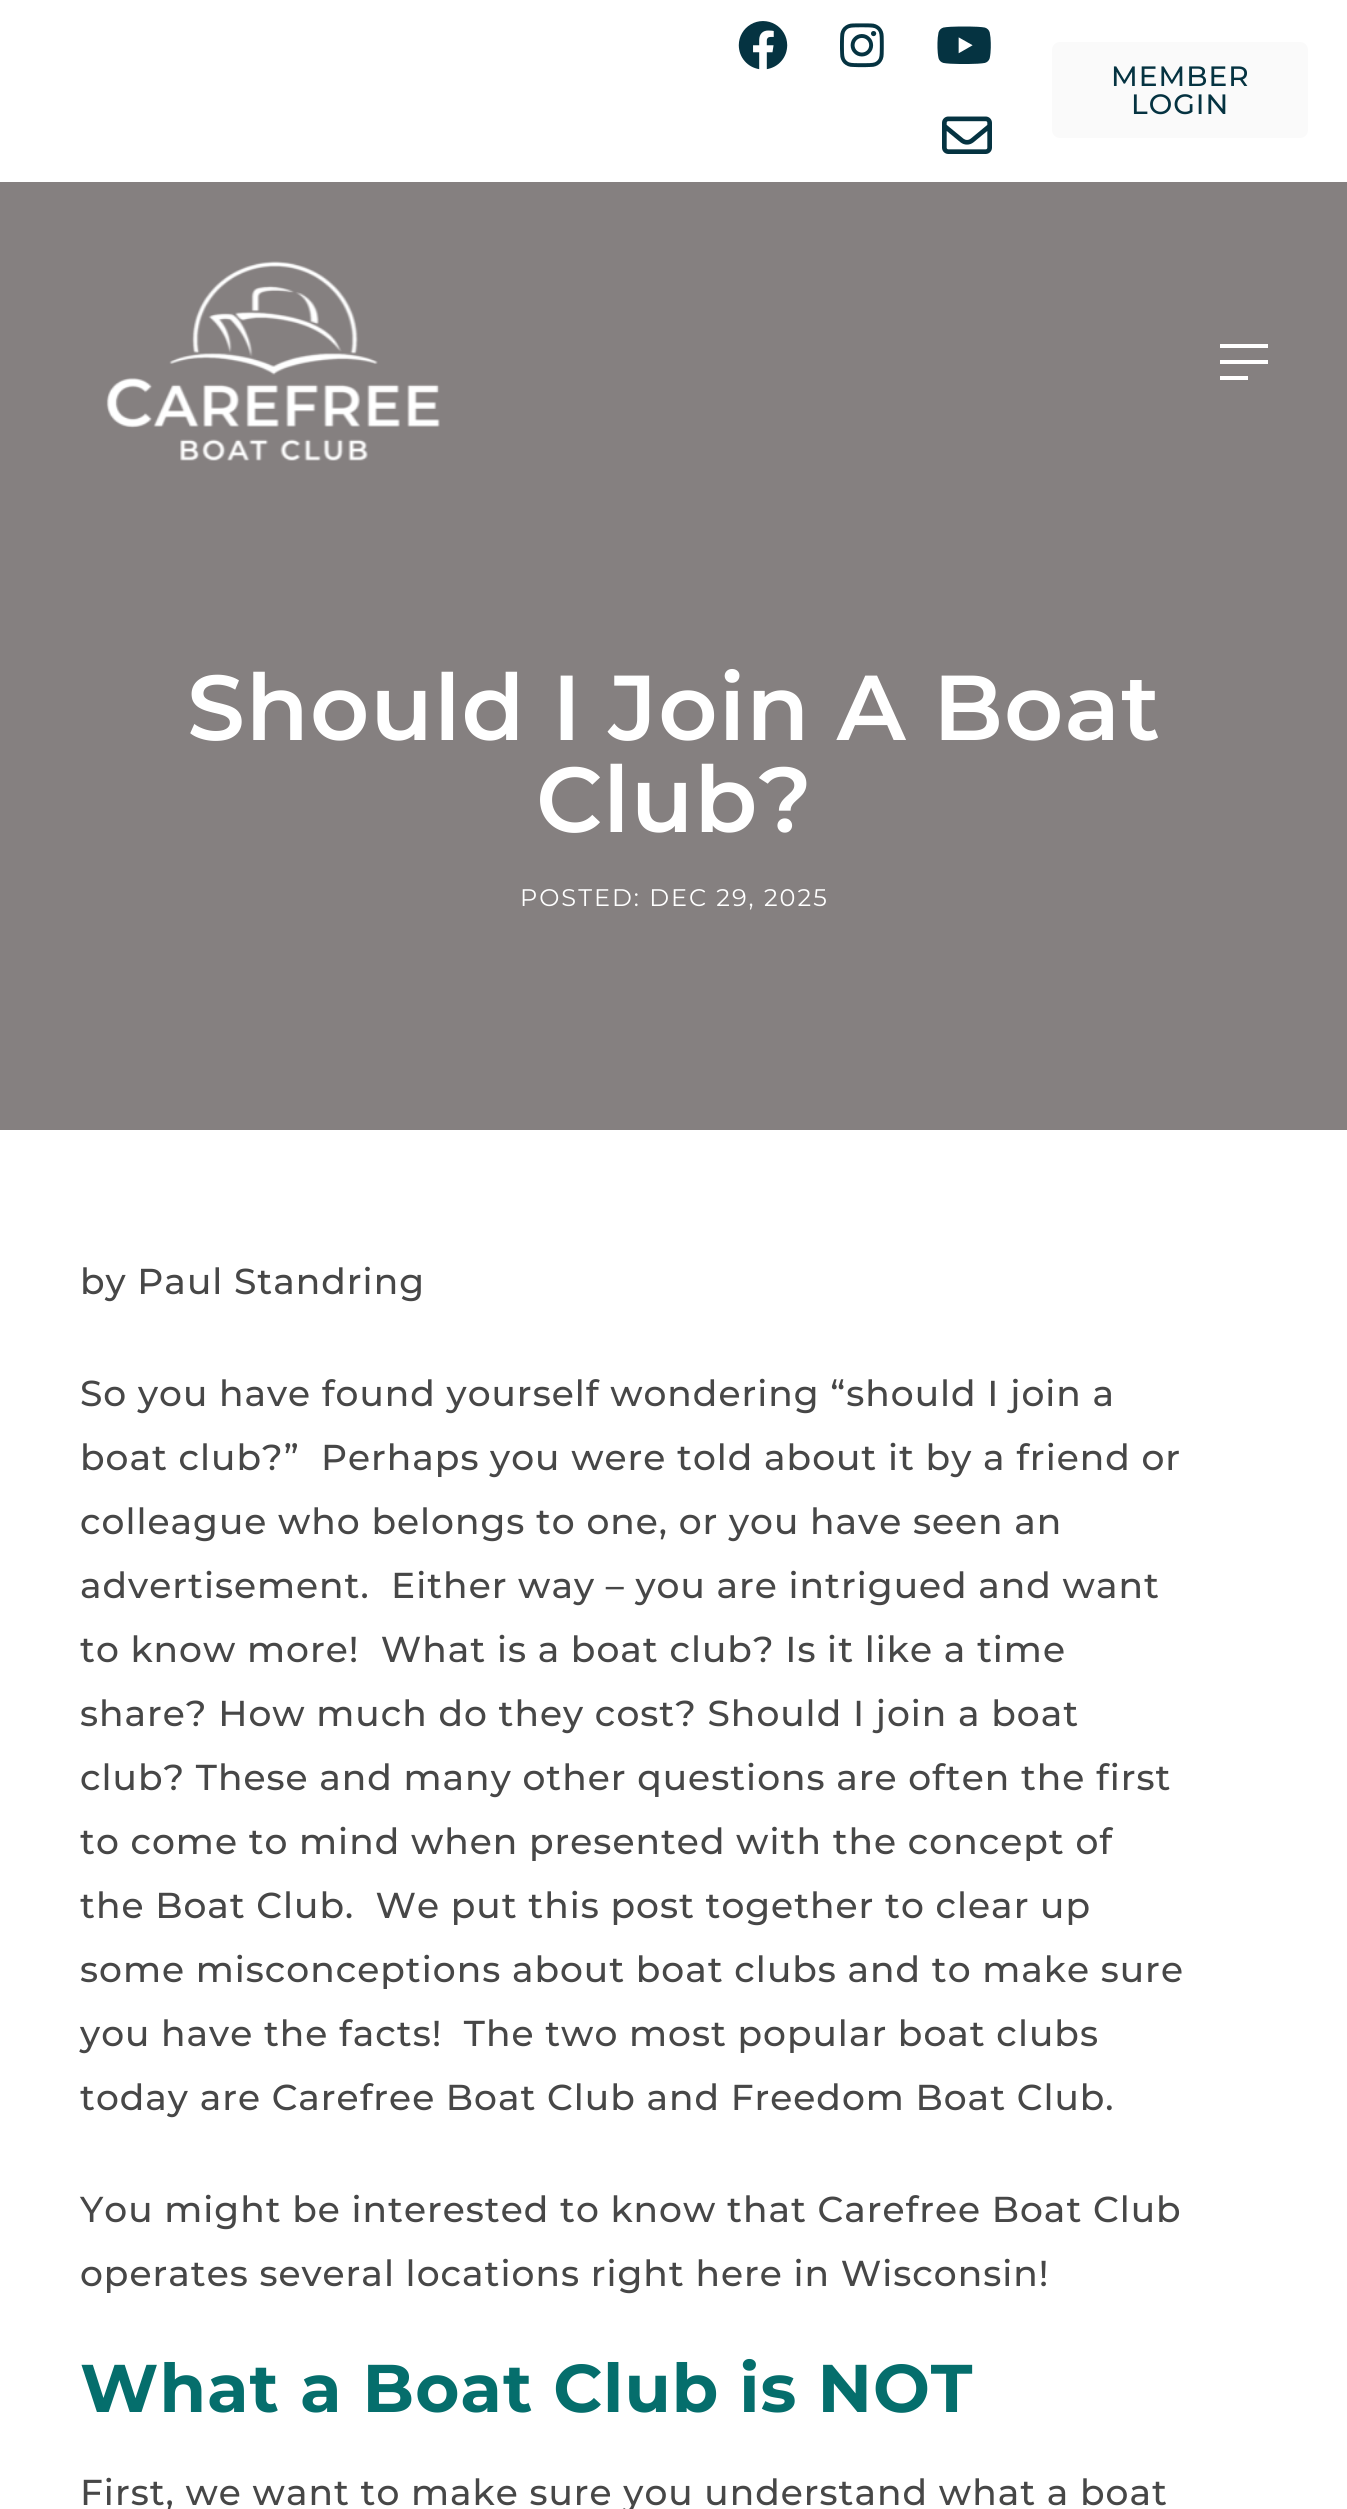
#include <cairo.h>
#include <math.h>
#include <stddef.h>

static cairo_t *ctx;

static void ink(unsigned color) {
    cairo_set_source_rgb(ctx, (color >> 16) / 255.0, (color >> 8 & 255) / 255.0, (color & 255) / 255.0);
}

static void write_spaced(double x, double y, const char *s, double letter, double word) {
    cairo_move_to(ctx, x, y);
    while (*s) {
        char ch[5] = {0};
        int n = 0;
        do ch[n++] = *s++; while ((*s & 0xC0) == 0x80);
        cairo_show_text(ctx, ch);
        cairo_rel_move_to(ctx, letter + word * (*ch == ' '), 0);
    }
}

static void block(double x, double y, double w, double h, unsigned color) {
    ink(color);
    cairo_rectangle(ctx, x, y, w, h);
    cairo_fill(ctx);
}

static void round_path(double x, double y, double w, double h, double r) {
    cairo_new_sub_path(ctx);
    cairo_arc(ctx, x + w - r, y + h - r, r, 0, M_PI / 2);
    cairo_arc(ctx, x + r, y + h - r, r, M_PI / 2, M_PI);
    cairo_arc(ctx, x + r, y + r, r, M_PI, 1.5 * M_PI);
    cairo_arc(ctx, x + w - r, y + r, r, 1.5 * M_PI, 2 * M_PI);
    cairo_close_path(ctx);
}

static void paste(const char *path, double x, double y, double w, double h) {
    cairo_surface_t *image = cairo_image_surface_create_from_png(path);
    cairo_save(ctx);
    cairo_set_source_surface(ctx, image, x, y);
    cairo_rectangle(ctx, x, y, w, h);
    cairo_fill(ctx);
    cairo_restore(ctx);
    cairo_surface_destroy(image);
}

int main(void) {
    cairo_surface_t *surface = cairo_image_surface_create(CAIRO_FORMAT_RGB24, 1347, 2509);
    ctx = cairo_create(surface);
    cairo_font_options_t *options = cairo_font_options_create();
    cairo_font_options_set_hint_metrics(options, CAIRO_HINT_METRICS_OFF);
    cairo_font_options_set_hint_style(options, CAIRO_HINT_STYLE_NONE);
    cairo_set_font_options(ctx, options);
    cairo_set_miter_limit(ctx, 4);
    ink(0xffffff);
    cairo_paint(ctx);
    paste("pic1.png", 738, 21, 50, 49);
    paste("pic2.png", 840, 23, 44, 45);
    paste("pic3.png", 937, 26, 54, 38);
    paste("pic4.png", 942, 116, 50, 38);
    ink(0xfafafa);
    round_path(1052, 42, 256, 96, 8);
    cairo_fill(ctx);
    cairo_select_font_face(ctx, "Montserrat Medium", CAIRO_FONT_SLANT_NORMAL, CAIRO_FONT_WEIGHT_NORMAL);
    cairo_set_font_size(ctx, 28);
    ink(0x053341);
    write_spaced(1111, 86, "MEMBER", 1, 0);
    write_spaced(1131, 114, "LOGIN", 1, 0);
    block(0, 182, 1347, 948, 0x858080);
    paste("pic5.png", 106, 261, 334, 200);
    block(1220, 344, 48, 4, 0xffffff);
    block(1220, 360, 48, 4, 0xffffff);
    block(1220, 376, 28, 4, 0xffffff);
    cairo_select_font_face(ctx, "Montserrat SemiBold", CAIRO_FONT_SLANT_NORMAL, CAIRO_FONT_WEIGHT_NORMAL);
    cairo_set_font_size(ctx, 92);
    write_spaced(187, 740, "Should I Join A Boat", 1, 0);
    write_spaced(536, 832, "Club?", 1, 0);
    cairo_select_font_face(ctx, "Montserrat", CAIRO_FONT_SLANT_NORMAL, CAIRO_FONT_WEIGHT_NORMAL);
    cairo_set_font_size(ctx, 24);
    write_spaced(520, 906, "POSTED: DEC 29, 2025", 2, 0);
    cairo_select_font_face(ctx, "Montserrat Medium", CAIRO_FONT_SLANT_NORMAL, CAIRO_FONT_WEIGHT_NORMAL);
    cairo_set_font_size(ctx, 36);
    ink(0x474747);
    write_spaced(80, 1294, "by Paul Standring", 1, 0);
    write_spaced(80, 1406, "So you have found yourself wondering “should I join a", 1, 0);
    write_spaced(80, 1470, "boat club?”  Perhaps you were told about it by a friend or", 1, 0);
    write_spaced(80, 1534, "colleague who belongs to one, or you have seen an", 1, 0);
    write_spaced(80, 1598, "advertisement.  Either way – you are intrigued and want", 1, 0);
    write_spaced(80, 1662, "to know more!  What is a boat club? Is it like a time", 1, 0);
    write_spaced(80, 1726, "share? How much do they cost? Should I join a boat", 1, 0);
    write_spaced(80, 1790, "club? These and many other questions are often the first", 1, 0);
    write_spaced(80, 1854, "to come to mind when presented with the concept of", 1, 0);
    write_spaced(80, 1918, "the Boat Club.  We put this post together to clear up", 1, 0);
    write_spaced(80, 1982, "some misconceptions about boat clubs and to make sure", 1, 0);
    write_spaced(80, 2046, "you have the facts!  The two most popular boat clubs", 1, 0);
    write_spaced(80, 2110, "today are Carefree Boat Club and Freedom Boat Club.", 1, 0);
    write_spaced(80, 2222, "You might be interested to know that Carefree Boat Club", 1, 0);
    write_spaced(80, 2286, "operates several locations right here in Wisconsin!", 1, 0);
    cairo_select_font_face(ctx, "Montserrat", CAIRO_FONT_SLANT_NORMAL, CAIRO_FONT_WEIGHT_BOLD);
    cairo_set_font_size(ctx, 67.4);
    ink(0x056e6c);
    write_spaced(80, 2412, "What a Boat Club is NOT", 1, 0);
    cairo_select_font_face(ctx, "Montserrat Medium", CAIRO_FONT_SLANT_NORMAL, CAIRO_FONT_WEIGHT_NORMAL);
    cairo_set_font_size(ctx, 36);
    ink(0x474747);
    write_spaced(80, 2505, "First, we want to make sure you understand what a boat", 1, 0);
    cairo_surface_write_to_png(surface, "screenshot.png");
    cairo_font_options_destroy(options);
    cairo_destroy(ctx);
    cairo_surface_destroy(surface);
    return 0;
}
